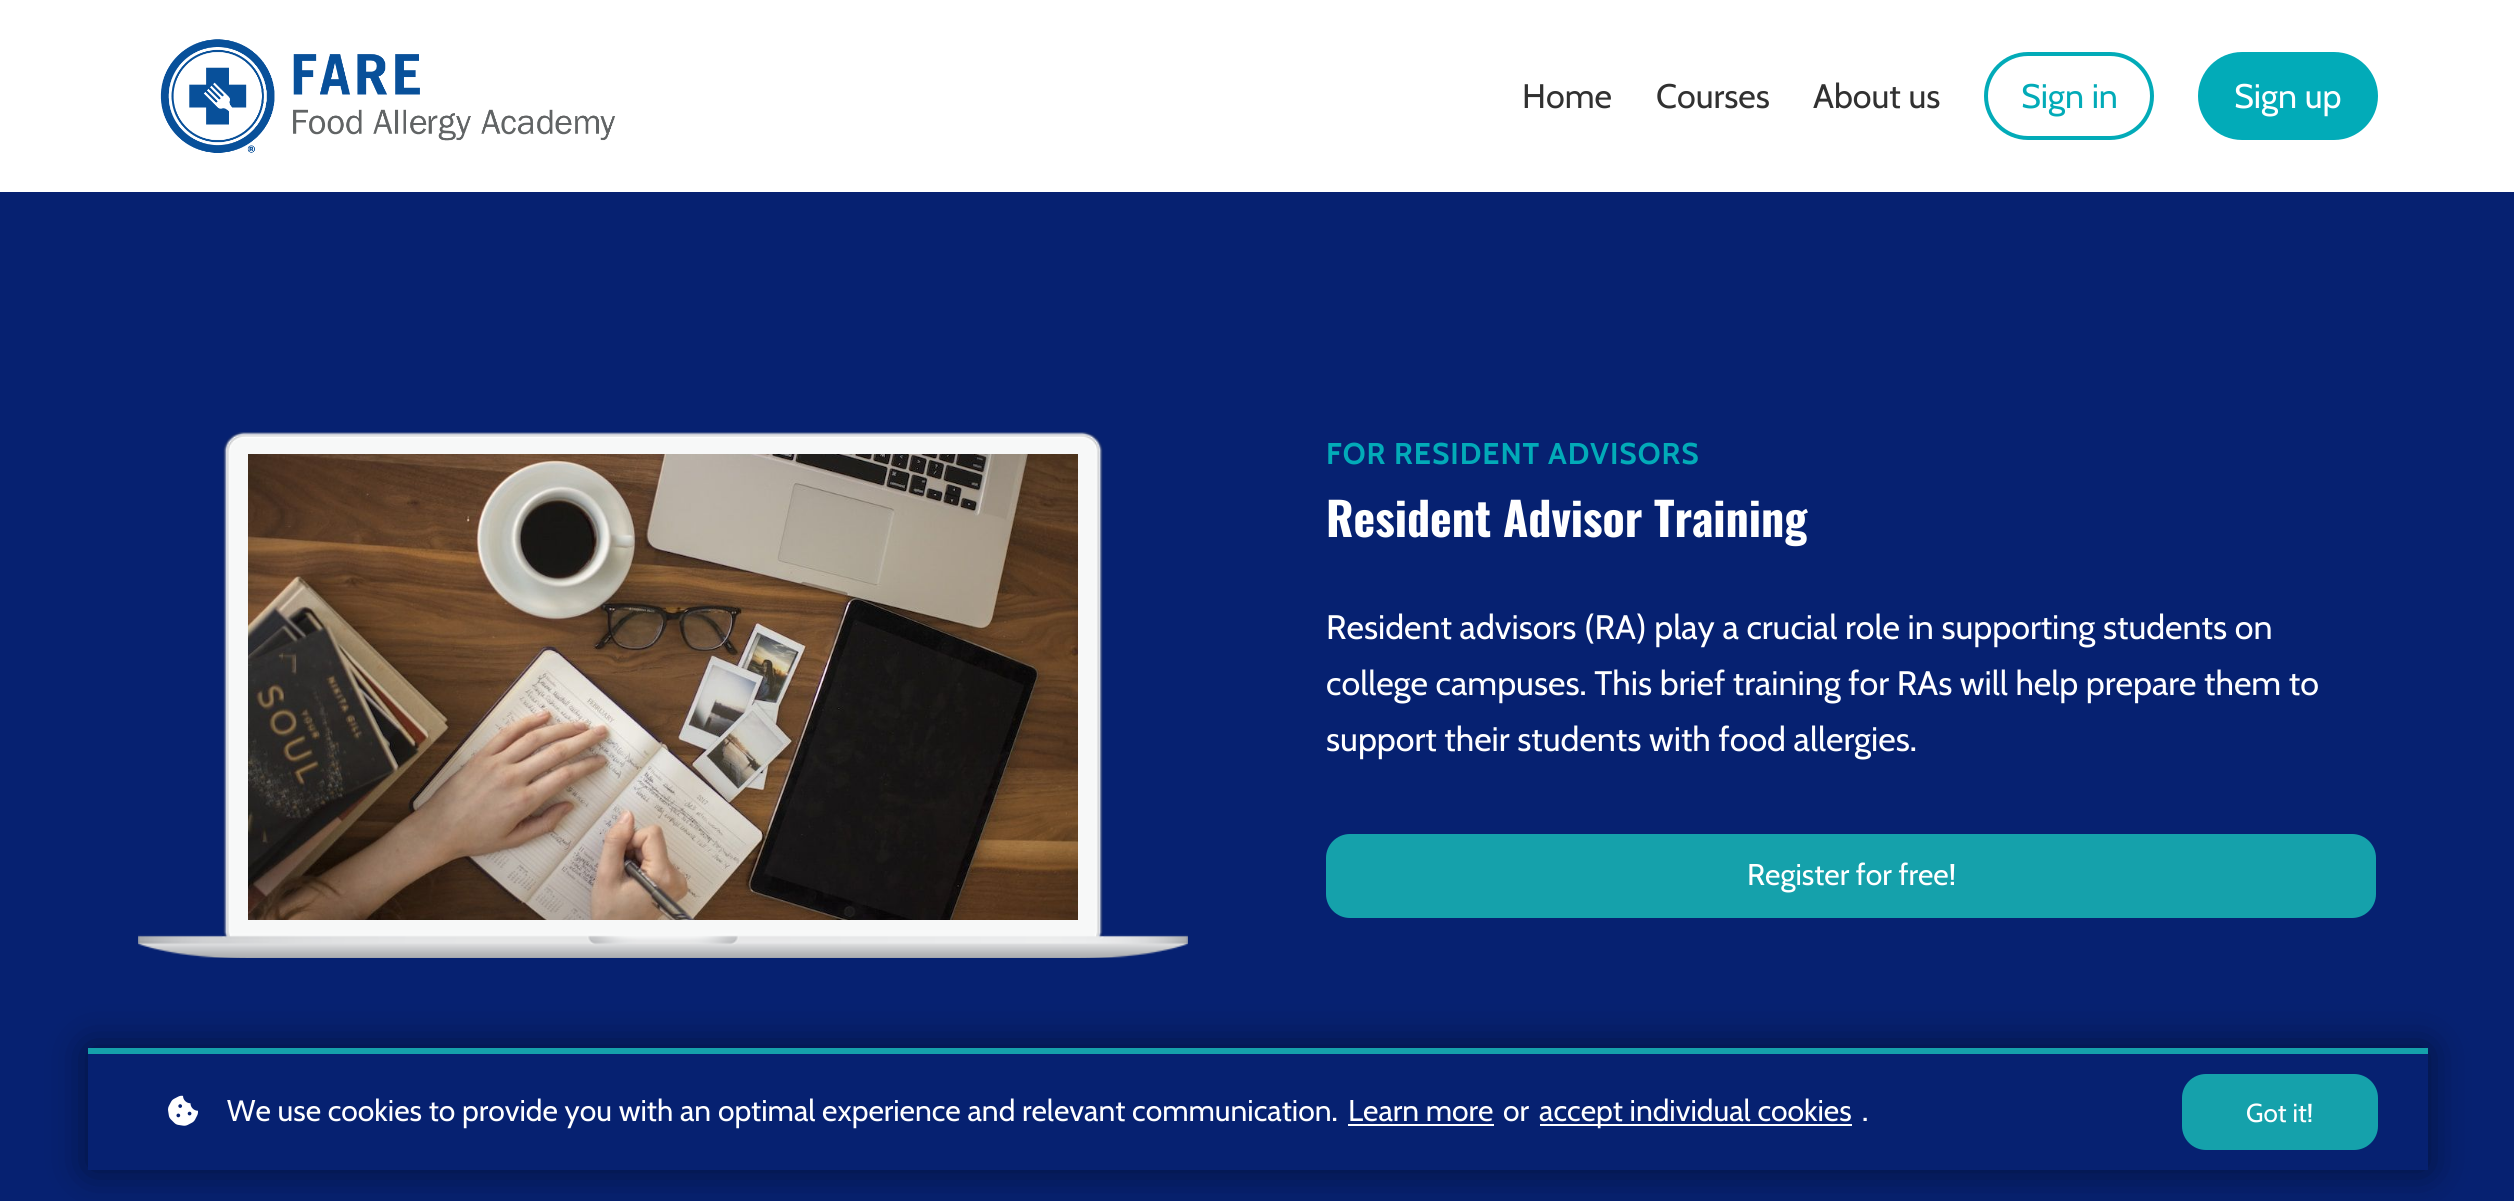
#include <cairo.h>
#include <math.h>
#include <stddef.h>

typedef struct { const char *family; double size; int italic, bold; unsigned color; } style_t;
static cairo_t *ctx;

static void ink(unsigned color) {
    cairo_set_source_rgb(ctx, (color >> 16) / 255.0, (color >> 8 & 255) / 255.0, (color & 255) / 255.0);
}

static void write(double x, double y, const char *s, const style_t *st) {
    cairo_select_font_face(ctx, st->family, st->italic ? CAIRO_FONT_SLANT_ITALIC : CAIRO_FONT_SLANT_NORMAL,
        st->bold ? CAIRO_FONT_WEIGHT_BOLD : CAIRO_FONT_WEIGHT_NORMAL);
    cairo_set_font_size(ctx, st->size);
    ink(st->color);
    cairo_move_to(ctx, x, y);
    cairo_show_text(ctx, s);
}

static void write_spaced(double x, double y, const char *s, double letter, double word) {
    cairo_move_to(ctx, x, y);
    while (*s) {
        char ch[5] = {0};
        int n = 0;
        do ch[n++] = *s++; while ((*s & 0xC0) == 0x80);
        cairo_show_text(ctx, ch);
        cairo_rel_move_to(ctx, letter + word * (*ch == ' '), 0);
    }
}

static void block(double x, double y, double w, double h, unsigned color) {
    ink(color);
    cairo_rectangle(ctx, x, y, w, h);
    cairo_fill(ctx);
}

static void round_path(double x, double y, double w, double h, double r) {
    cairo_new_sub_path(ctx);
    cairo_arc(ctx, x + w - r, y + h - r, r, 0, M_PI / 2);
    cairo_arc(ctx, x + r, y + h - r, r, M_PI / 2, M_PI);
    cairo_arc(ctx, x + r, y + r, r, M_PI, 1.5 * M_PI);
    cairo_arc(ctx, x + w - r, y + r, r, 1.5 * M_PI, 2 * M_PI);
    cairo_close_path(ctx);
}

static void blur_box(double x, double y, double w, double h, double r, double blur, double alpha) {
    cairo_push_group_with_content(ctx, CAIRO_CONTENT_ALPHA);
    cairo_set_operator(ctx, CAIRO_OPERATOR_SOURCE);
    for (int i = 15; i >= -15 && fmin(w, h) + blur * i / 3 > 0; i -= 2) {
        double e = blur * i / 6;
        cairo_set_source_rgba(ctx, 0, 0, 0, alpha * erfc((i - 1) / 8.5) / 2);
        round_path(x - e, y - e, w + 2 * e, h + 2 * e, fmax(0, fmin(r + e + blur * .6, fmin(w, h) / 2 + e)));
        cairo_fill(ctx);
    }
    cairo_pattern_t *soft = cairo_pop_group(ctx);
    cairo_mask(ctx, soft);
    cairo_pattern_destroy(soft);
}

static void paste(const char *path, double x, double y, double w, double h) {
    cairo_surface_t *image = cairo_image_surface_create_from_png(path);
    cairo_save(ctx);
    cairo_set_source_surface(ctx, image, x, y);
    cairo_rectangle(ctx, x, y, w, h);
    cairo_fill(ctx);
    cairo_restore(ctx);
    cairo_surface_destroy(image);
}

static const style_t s1 = {"Cabin", 34, 0, 0, 0x313131};
static const style_t s2 = {"Cabin", 34, 0, 0, 0x02abb8};
static const style_t s3 = {"Cabin", 34, 0, 0, 0xffffff};
static const style_t s4 = {"Oswald", 46, 0, 1, 0xffffff};
static const style_t s5 = {"Cabin", 30, 0, 0, 0xffffff};
static const style_t s6 = {"Cabin", 26, 0, 0, 0xffffff};

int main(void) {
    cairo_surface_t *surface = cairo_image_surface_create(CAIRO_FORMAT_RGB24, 2514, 1201);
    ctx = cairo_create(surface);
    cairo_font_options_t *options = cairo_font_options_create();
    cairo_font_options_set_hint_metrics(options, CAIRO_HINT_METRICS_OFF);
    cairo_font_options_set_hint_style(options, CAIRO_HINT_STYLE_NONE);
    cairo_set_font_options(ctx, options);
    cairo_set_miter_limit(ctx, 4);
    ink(0xffffff);
    cairo_paint(ctx);
    paste("pic1.png", 160, 39, 456, 114);
    write(1522, 108, "Home", &s1);
    write(1656, 108, "Courses", &s1);
    write(1813, 108, "About us", &s1);
    round_path(1986, 54, 166, 84, 42);
    ink(0x02abb8);
    cairo_set_line_width(ctx, 4);
    cairo_stroke(ctx);
    write(2021, 108, "Sign in", &s2);
    round_path(2198, 52, 180, 88, 44);
    cairo_fill(ctx);
    write(2234, 108, "Sign up", &s3);
    block(0, 192, 2514, 1009, 0x062171);
    paste("pic2.png", 138, 432, 1050, 526);
    paste("pic3.png", 248, 454, 830, 466);
    cairo_select_font_face(ctx, "Cabin", CAIRO_FONT_SLANT_NORMAL, CAIRO_FONT_WEIGHT_BOLD);
    cairo_set_font_size(ctx, 30);
    ink(0x02abb8);
    write_spaced(1326, 464, "FOR RESIDENT ADVISORS", 1, 0);
    write(1326, 537, "Resident Advisor Training", &s4);
    write(1326, 639, "Resident advisors (RA) play a crucial role in supporting students on", &s3);
    write(1326, 695, "college campuses. This brief training for RAs will help prepare them to", &s3);
    write(1326, 751, "support their students with food allergies.", &s3);
    ink(0x15a1ab);
    round_path(1326, 834, 1050, 84, 24);
    cairo_fill(ctx);
    write(1747, 885, "Register for free!", &s5);
    cairo_save(ctx);
    cairo_set_fill_rule(ctx, CAIRO_FILL_RULE_EVEN_ODD);
    cairo_new_path(ctx);
    cairo_move_to(ctx, 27, 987);
    cairo_line_to(ctx, 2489, 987);
    cairo_line_to(ctx, 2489, 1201);
    cairo_line_to(ctx, 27, 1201);
    cairo_close_path(ctx);
    cairo_move_to(ctx, 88, 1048);
    cairo_line_to(ctx, 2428, 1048);
    cairo_line_to(ctx, 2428, 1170);
    cairo_line_to(ctx, 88, 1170);
    cairo_close_path(ctx);
    cairo_clip(ctx);
    ink(0x000000);
    blur_box(88, 1048, 2340, 122, 0, 20, 0.5);
    cairo_restore(ctx);
    block(88, 1048, 2340, 6, 0x15a1ab);
    paste("pic4.png", 168, 1095, 30, 31);
    write(227, 1121, "We use cookies to provide you with an optimal experience and relevant communication.", &s5);
    write(1348, 1121, "Learn more", &s5);
    block(1348, 1124, 146, 2, 0xffffff);
    write(1503, 1121, "or", &s5);
    block(1540, 1124, 312, 2, 0xffffff);
    write(1539, 1121, "accept individual cookies", &s5);
    write(1862, 1121, ".", &s5);
    ink(0x15a1ab);
    round_path(2182, 1074, 196, 76, 24);
    cairo_fill(ctx);
    write(2246, 1122, "Got it!", &s6);
    cairo_surface_write_to_png(surface, "screenshot.png");
    cairo_font_options_destroy(options);
    cairo_destroy(ctx);
    cairo_surface_destroy(surface);
    return 0;
}
